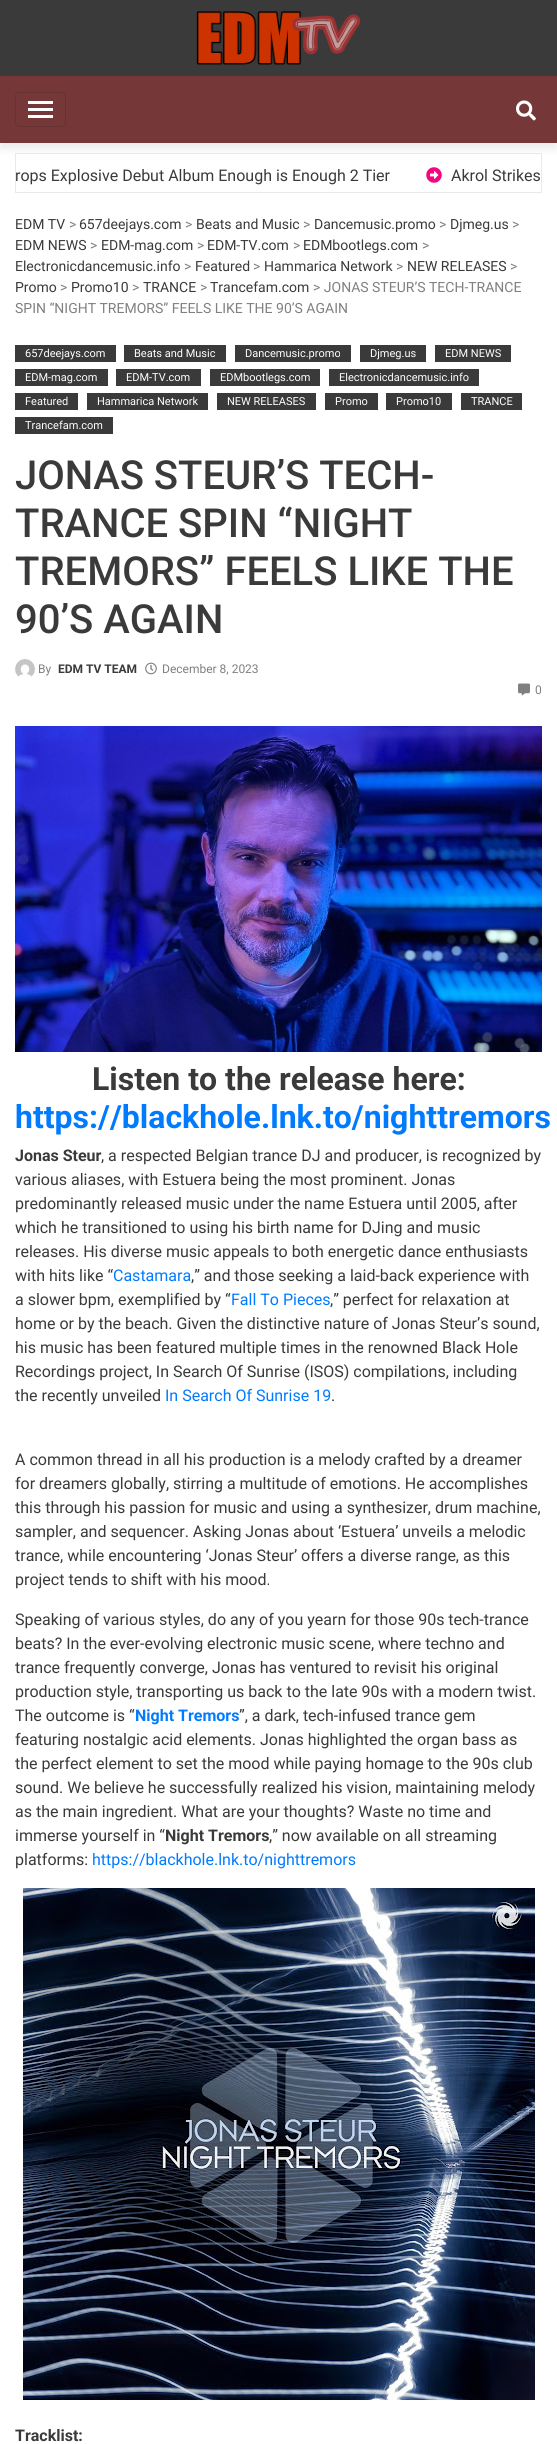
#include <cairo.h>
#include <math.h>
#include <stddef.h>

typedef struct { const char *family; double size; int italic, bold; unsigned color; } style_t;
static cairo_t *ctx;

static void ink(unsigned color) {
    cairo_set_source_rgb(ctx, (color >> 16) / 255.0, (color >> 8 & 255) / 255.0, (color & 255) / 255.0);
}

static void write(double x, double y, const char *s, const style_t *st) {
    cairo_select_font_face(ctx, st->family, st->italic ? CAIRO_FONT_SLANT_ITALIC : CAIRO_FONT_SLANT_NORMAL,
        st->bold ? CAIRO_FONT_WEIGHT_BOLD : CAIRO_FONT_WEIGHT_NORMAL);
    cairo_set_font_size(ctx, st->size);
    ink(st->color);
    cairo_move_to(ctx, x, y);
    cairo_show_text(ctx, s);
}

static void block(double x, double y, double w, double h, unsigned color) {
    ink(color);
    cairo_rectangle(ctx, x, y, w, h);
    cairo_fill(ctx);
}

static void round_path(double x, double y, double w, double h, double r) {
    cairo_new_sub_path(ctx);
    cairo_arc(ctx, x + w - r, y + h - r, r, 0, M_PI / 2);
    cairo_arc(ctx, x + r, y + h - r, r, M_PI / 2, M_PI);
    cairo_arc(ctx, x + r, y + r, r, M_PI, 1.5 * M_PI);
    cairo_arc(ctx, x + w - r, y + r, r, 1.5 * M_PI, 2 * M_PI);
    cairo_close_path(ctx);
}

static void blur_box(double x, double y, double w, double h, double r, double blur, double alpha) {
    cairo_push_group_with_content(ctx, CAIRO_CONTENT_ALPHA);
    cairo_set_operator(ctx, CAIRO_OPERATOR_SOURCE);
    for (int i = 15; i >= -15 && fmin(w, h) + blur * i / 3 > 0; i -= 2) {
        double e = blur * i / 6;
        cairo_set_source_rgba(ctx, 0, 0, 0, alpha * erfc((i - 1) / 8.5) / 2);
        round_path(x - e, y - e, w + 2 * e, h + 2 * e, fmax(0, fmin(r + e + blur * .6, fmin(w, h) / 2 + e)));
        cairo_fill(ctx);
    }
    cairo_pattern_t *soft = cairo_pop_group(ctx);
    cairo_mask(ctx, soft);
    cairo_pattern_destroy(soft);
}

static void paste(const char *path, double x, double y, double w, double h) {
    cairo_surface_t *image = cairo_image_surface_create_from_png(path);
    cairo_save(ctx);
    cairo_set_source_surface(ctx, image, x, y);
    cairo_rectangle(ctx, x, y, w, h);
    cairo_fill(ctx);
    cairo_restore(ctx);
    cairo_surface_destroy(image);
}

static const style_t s1 = {"Roboto", 16, 0, 0, 0x3a3a3a};
static const style_t s2 = {"Roboto", 14, 0, 0, 0x3a3a3a};
static const style_t s3 = {"Roboto", 14, 0, 0, 0x808080};
static const style_t s4 = {"Roboto", 11, 0, 0, 0xffffff};
static const style_t s5 = {"Roboto Medium", 40, 0, 0, 0x3a3a3a};
static const style_t s6 = {"Roboto", 12, 0, 0, 0x808080};
static const style_t s7 = {"Roboto", 12, 0, 1, 0x3a3a3a};
static const style_t s8 = {"Roboto", 32, 0, 1, 0x3a3a3a};
static const style_t s9 = {"Roboto", 32, 0, 1, 0x007bff};
static const style_t s10 = {"Roboto", 16, 0, 1, 0x3a3a3a};
static const style_t s11 = {"Roboto", 16, 0, 0, 0x007bff};
static const style_t s12 = {"Roboto", 16, 0, 1, 0x007bff};

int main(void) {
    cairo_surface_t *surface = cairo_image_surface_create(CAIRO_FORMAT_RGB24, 557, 2444);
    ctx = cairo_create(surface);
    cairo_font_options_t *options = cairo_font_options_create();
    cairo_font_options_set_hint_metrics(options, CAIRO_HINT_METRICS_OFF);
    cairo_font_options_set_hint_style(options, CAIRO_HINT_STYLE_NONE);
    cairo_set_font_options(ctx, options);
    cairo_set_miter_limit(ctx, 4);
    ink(0xffffff);
    cairo_paint(ctx);
    ink(0x000000);
    blur_box(0, 6, 557, 143, 0, 4, 0.08);
    block(0, 0, 557, 76, 0x3a3a3a);
    paste("pic1.png", 196, 11, 165, 54);
    block(0, 76, 557, 67, 0x753737);
    round_path(15.5, 92.5, 50, 34, 3.5);
    ink(0x693232);
    cairo_set_line_width(ctx, 1);
    cairo_stroke(ctx);
    block(28, 101, 25, 3, 0xffffff);
    block(28, 108, 25, 3, 0xffffff);
    block(28, 115, 25, 3, 0xffffff);
    paste("pic2.png", 516, 100, 20, 21);
    cairo_rectangle(ctx, 15.5, 153.5, 526, 39);
    ink(0xe9e9e9);
    cairo_stroke(ctx);
    write(15, 181, "rops Explosive Debut Album Enough is Enough 2 Tier", &s1);
    paste("pic3.png", 426, 167, 16, 16);
    write(451, 181, "Akrol Strikes", &s1);
    write(15, 229, "EDM TV", &s2);
    write(69, 229, ">", &s3);
    write(79, 229, "657deejays.com", &s2);
    write(185, 229, ">", &s3);
    write(196, 229, "Beats and Music", &s2);
    write(303, 229, ">", &s3);
    write(314, 229, "Dancemusic.promo", &s2);
    write(439, 229, ">", &s3);
    write(450, 229, "Djmeg.us", &s2);
    write(512, 229, ">", &s3);
    write(15, 250, "EDM NEWS", &s2);
    write(90, 250, ">", &s3);
    write(101, 250, "EDM-mag.com", &s2);
    write(197, 250, ">", &s3);
    write(207, 250, "EDM-TV.com", &s2);
    write(293, 250, ">", &s3);
    write(303, 250, "EDMbootlegs.com", &s2);
    write(422, 250, ">", &s3);
    write(15, 271, "Electronicdancemusic.info", &s2);
    write(184, 271, ">", &s3);
    write(195, 271, "Featured", &s2);
    write(253, 271, ">", &s3);
    write(264, 271, "Hammarica Network", &s2);
    write(396, 271, ">", &s3);
    write(407, 271, "NEW RELEASES", &s2);
    write(510, 271, ">", &s3);
    write(15, 292, "Promo", &s2);
    write(60, 292, ">", &s3);
    write(71, 292, "Promo10", &s2);
    write(132, 292, ">", &s3);
    write(143, 292, "TRANCE", &s2);
    write(200, 292, ">", &s3);
    write(210, 292, "Trancefam.com", &s2);
    write(313, 292, "> JONAS STEUR’S TECH-TRANCE", &s3);
    write(15, 313, "SPIN “NIGHT TREMORS” FEELS LIKE THE 90’S AGAIN", &s3);
    block(15, 345, 101, 17, 0x3a3a3a);
    write(25, 357, "657deejays.com", &s4);
    block(124, 345, 102, 17, 0x3a3a3a);
    write(134, 357, "Beats and Music", &s4);
    block(235, 345, 116, 17, 0x3a3a3a);
    write(245, 357, "Dancemusic.promo", &s4);
    block(360, 345, 66, 17, 0x3a3a3a);
    write(370, 357, "Djmeg.us", &s4);
    block(435, 345, 76, 17, 0x3a3a3a);
    write(445, 357, "EDM NEWS", &s4);
    block(15, 369, 93, 17, 0x3a3a3a);
    write(25, 381, "EDM-mag.com", &s4);
    block(116, 369, 85, 17, 0x3a3a3a);
    write(126, 381, "EDM-TV.com", &s4);
    block(210, 369, 110, 17, 0x3a3a3a);
    write(220, 381, "EDMbootlegs.com", &s4);
    block(329, 369, 150, 17, 0x3a3a3a);
    write(339, 381, "Electronicdancemusic.info", &s4);
    block(15, 393, 63, 17, 0x3a3a3a);
    write(25, 405, "Featured", &s4);
    block(87, 393, 121, 17, 0x3a3a3a);
    write(97, 405, "Hammarica Network", &s4);
    block(217, 393, 99, 17, 0x3a3a3a);
    write(227, 405, "NEW RELEASES", &s4);
    block(325, 393, 53, 17, 0x3a3a3a);
    write(335, 405, "Promo", &s4);
    block(386, 393, 66, 17, 0x3a3a3a);
    write(396, 405, "Promo10", &s4);
    block(461, 393, 61, 17, 0x3a3a3a);
    write(471, 405, "TRANCE", &s4);
    block(15, 417, 98, 17, 0x3a3a3a);
    write(25, 429, "Trancefam.com", &s4);
    write(15, 489, "JONAS STEUR’S TECH-", &s5);
    write(15, 537, "TRANCE SPIN “NIGHT", &s5);
    write(15, 585, "TREMORS” FEELS LIKE THE", &s5);
    write(15, 633, "90’S AGAIN", &s5);
    paste("pic4.png", 15, 659, 20, 18);
    write(38, 673, "By", &s6);
    write(58, 673, "EDM TV TEAM", &s7);
    paste("pic5.png", 145, 662, 12, 13);
    write(162, 673, "December 8, 2023", &s6);
    paste("pic6.png", 518, 683, 12, 13);
    write(535, 694, "0", &s6);
    paste("pic7.png", 15, 726, 527, 326);
    write(92, 1090, "Listen to the release here:", &s8);
    write(15, 1128, "https://blackhole.lnk.to/nighttremors", &s9);
    write(15, 1161, "Jonas Steur", &s10);
    write(101, 1161, ", a respected Belgian trance DJ and producer, is recognized by", &s1);
    write(15, 1185, "various aliases, with Estuera being the most prominent. Jonas", &s1);
    write(15, 1209, "predominantly released music under the name Estuera until 2005, after", &s1);
    write(15, 1233, "which he transitioned to using his birth name for DJing and music", &s1);
    write(15, 1257, "releases. His diverse music appeals to both energetic dance enthusiasts", &s1);
    write(15, 1281, "with hits like “", &s1);
    write(113, 1281, "Castamara", &s11);
    write(191, 1281, ",” and those seeking a laid-back experience with", &s1);
    write(15, 1305, "a slower bpm, exemplified by “", &s1);
    write(231, 1305, "Fall To Pieces", &s11);
    write(330, 1305, ",” perfect for relaxation at", &s1);
    write(15, 1329, "home or by the beach. Given the distinctive nature of Jonas Steur’s sound,", &s1);
    write(15, 1353, "his music has been featured multiple times in the renowned Black Hole", &s1);
    write(15, 1377, "Recordings project, In Search Of Sunrise (ISOS) compilations, including", &s1);
    write(15, 1401, "the recently unveiled", &s1);
    write(165, 1401, "In Search Of Sunrise 19", &s11);
    write(331, 1401, ".", &s1);
    write(15, 1465, "A common thread in all his production is a melody crafted by a dreamer", &s1);
    write(15, 1489, "for dreamers globally, stirring a multitude of emotions. He accomplishes", &s1);
    write(15, 1513, "this through his passion for music and using a synthesizer, drum machine,", &s1);
    write(15, 1537, "sampler, and sequencer. Asking Jonas about ‘Estuera’ unveils a melodic", &s1);
    write(15, 1561, "trance, while encountering ‘Jonas Steur’ offers a diverse range, as this", &s1);
    write(15, 1585, "project tends to shift with his mood.", &s1);
    write(15, 1625, "Speaking of various styles, do any of you yearn for those 90s tech-trance", &s1);
    write(15, 1649, "beats? In the ever-evolving electronic music scene, where techno and", &s1);
    write(15, 1673, "trance frequently converge, Jonas has ventured to revisit his original", &s1);
    write(15, 1697, "production style, transporting us back to the late 90s with a modern twist.", &s1);
    write(15, 1721, "The outcome is “", &s1);
    write(135, 1721, "Night Tremors", &s12);
    write(239, 1721, "”, a dark, tech-infused trance gem", &s1);
    write(15, 1745, "featuring nostalgic acid elements. Jonas highlighted the organ bass as", &s1);
    write(15, 1769, "the perfect element to set the mood while paying homage to the 90s club", &s1);
    write(15, 1793, "sound. We believe he successfully realized his vision, maintaining melody", &s1);
    write(15, 1817, "as the main ingredient. What are your thoughts? Waste no time and", &s1);
    write(15, 1841, "immerse yourself in “", &s1);
    write(165, 1841, "Night Tremors", &s10);
    write(269, 1841, ",” now available on all streaming", &s1);
    write(15, 1865, "platforms:", &s1);
    write(92, 1865, "https://blackhole.lnk.to/nighttremors", &s11);
    paste("pic8.png", 23, 1888, 512, 512);
    write(15, 2441, "Tracklist:", &s10);
    cairo_surface_write_to_png(surface, "screenshot.png");
    cairo_font_options_destroy(options);
    cairo_destroy(ctx);
    cairo_surface_destroy(surface);
    return 0;
}
